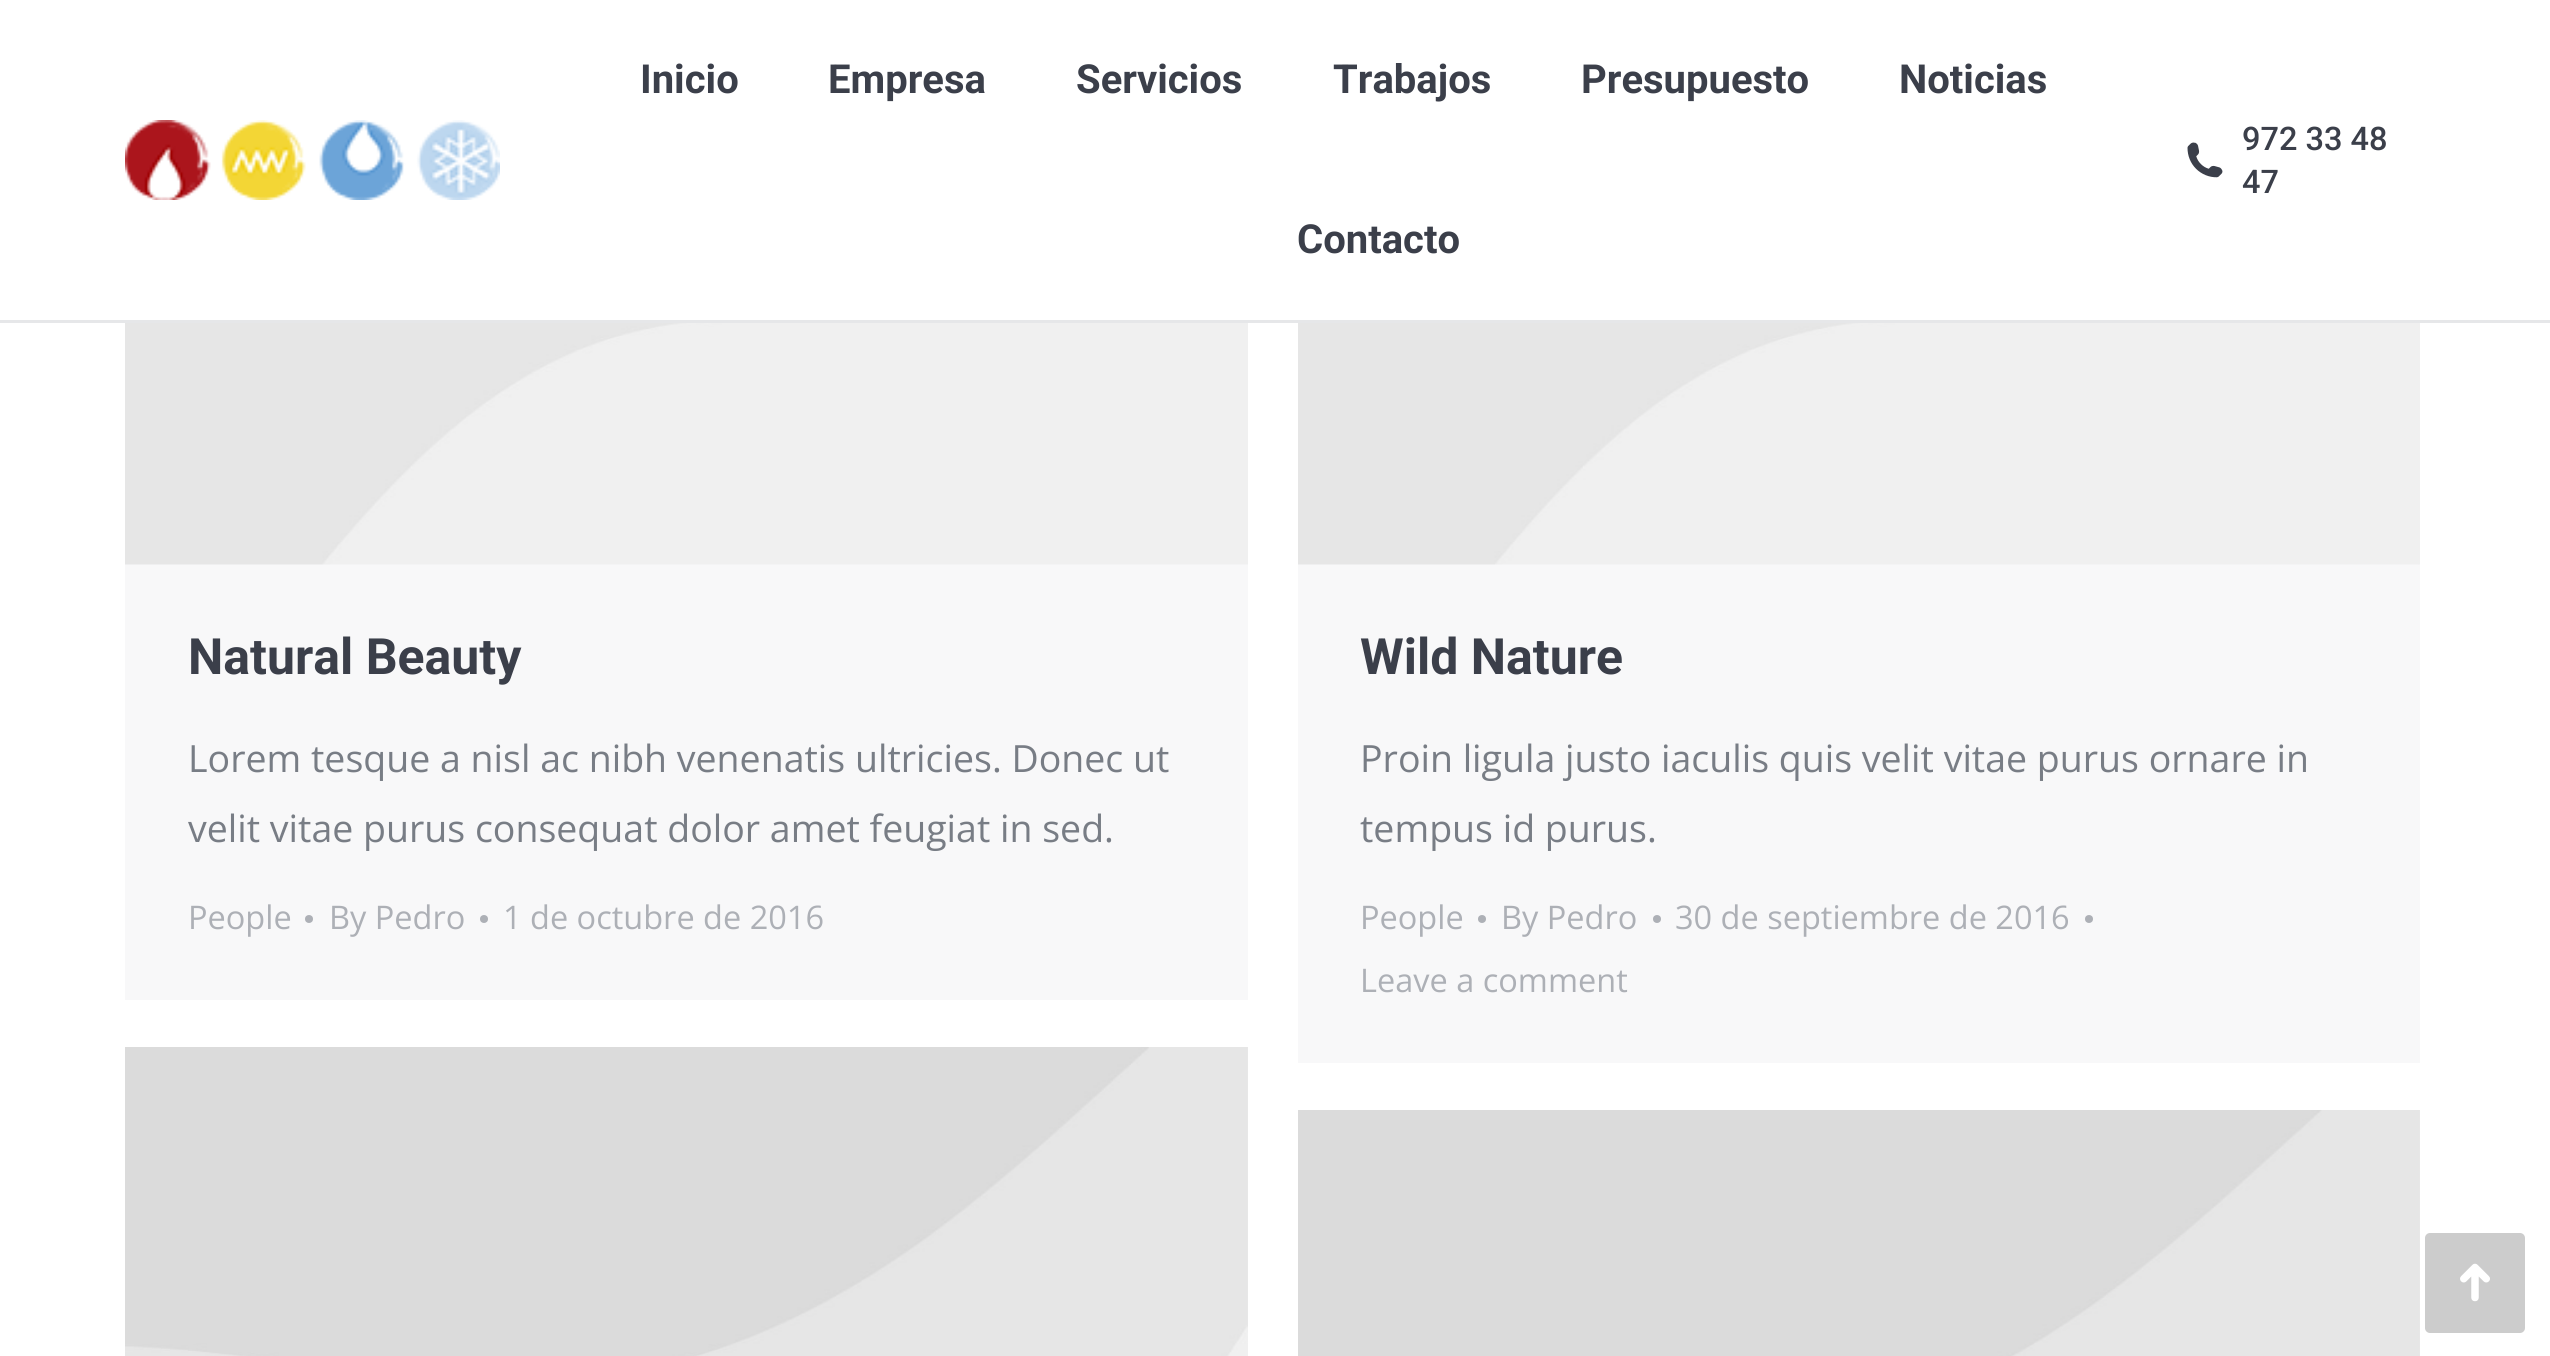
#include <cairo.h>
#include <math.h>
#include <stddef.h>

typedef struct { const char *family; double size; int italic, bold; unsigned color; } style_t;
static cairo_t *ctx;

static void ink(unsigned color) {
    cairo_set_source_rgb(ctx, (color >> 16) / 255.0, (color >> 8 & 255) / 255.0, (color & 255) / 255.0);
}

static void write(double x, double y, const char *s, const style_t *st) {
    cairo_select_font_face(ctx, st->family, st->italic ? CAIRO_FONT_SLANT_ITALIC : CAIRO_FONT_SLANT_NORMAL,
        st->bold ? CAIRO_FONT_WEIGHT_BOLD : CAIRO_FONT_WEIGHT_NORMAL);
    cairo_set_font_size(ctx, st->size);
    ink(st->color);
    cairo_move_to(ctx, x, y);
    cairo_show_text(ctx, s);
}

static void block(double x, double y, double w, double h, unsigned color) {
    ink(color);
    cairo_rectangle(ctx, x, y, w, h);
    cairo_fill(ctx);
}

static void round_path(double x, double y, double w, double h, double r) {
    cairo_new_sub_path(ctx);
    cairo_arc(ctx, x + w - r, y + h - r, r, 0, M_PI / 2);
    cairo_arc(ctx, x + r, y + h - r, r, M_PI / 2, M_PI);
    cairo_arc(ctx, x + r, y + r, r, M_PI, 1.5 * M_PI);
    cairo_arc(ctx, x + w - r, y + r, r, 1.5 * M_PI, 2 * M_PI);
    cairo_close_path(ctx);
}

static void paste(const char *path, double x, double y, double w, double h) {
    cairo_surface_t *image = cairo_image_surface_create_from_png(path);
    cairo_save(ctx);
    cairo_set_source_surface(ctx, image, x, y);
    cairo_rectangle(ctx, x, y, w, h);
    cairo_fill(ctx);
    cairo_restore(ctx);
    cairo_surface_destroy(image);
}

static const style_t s1 = {"Roboto", 40, 0, 1, 0x3b3f4a};
static const style_t s2 = {"Roboto Medium", 32.5, 0, 0, 0x3b3f4a};
static const style_t s3 = {"Roboto", 50, 0, 1, 0x3b3f4a};
static const style_t s4 = {"Open Sans", 37.5, 0, 0, 0x787d85};
static const style_t s5 = {"Open Sans", 32.5, 0, 0, 0xadb0b6};

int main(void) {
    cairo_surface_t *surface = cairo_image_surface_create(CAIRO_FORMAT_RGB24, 2550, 1356);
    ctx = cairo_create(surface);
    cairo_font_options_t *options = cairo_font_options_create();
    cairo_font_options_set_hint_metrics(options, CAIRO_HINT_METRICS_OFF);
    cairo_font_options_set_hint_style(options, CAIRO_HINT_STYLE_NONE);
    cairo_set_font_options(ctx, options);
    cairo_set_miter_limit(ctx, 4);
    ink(0xffffff);
    cairo_paint(ctx);
    block(0, 320, 2550, 3, 0xe6e7e9);
    paste("pic1.png", 125, 120, 375, 80);
    write(640, 93, "Inicio", &s1);
    write(828, 93, "Empresa", &s1);
    write(1076, 93, "Servicios", &s1);
    write(1333, 93, "Trabajos", &s1);
    write(1581, 93, "Presupuesto", &s1);
    write(1899, 93, "Noticias", &s1);
    write(1297, 253, "Contacto", &s1);
    write(2242, 150, "972 33 48", &s2);
    paste("pic2.png", 2187, 142, 36, 36);
    write(2242, 193, "47", &s2);
    block(125, 323, 1123, 677, 0xf8f8f9);
    paste("pic3.png", 125, 323, 1123, 242);
    write(188, 674, "Natural Beauty", &s3);
    write(188, 772, "Lorem tesque a nisl ac nibh venenatis ultricies. Donec ut", &s4);
    write(188, 842, "velit vitae purus consequat dolor amet feugiat in sed.", &s4);
    write(188, 929, "People", &s5);
    cairo_new_path(ctx);
    cairo_arc(ctx, 309, 919, 4, 0, 2 * M_PI);
    cairo_fill(ctx);
    write(329, 929, "By Pedro", &s5);
    cairo_new_path(ctx);
    cairo_arc(ctx, 484, 919, 4, 0, 2 * M_PI);
    cairo_fill(ctx);
    write(503, 929, "1 de octubre de 2016", &s5);
    block(1298, 323, 1122, 740, 0xf8f8f9);
    paste("pic4.png", 1298, 323, 1122, 242);
    write(1360, 674, "Wild Nature", &s3);
    write(1360, 772, "Proin ligula justo iaculis quis velit vitae purus ornare in", &s4);
    write(1360, 842, "tempus id purus.", &s4);
    write(1360, 929, "People", &s5);
    cairo_new_path(ctx);
    cairo_arc(ctx, 1482, 919, 4, 0, 2 * M_PI);
    cairo_fill(ctx);
    write(1501, 929, "By Pedro", &s5);
    cairo_new_path(ctx);
    cairo_arc(ctx, 1657, 919, 4, 0, 2 * M_PI);
    cairo_fill(ctx);
    write(1675, 929, "30 de septiembre de 2016", &s5);
    cairo_new_path(ctx);
    cairo_arc(ctx, 2089, 919, 4, 0, 2 * M_PI);
    cairo_fill(ctx);
    write(1360, 992, "Leave a comment", &s5);
    paste("pic5.png", 125, 1047, 1123, 309);
    paste("pic6.png", 1298, 1110, 1122, 246);
    ink(0xcccccc);
    round_path(2425, 1233, 100, 100, 5);
    cairo_fill(ctx);
    paste("pic7.png", 2460, 1263, 30, 39);
    cairo_surface_write_to_png(surface, "screenshot.png");
    cairo_font_options_destroy(options);
    cairo_destroy(ctx);
    cairo_surface_destroy(surface);
    return 0;
}
